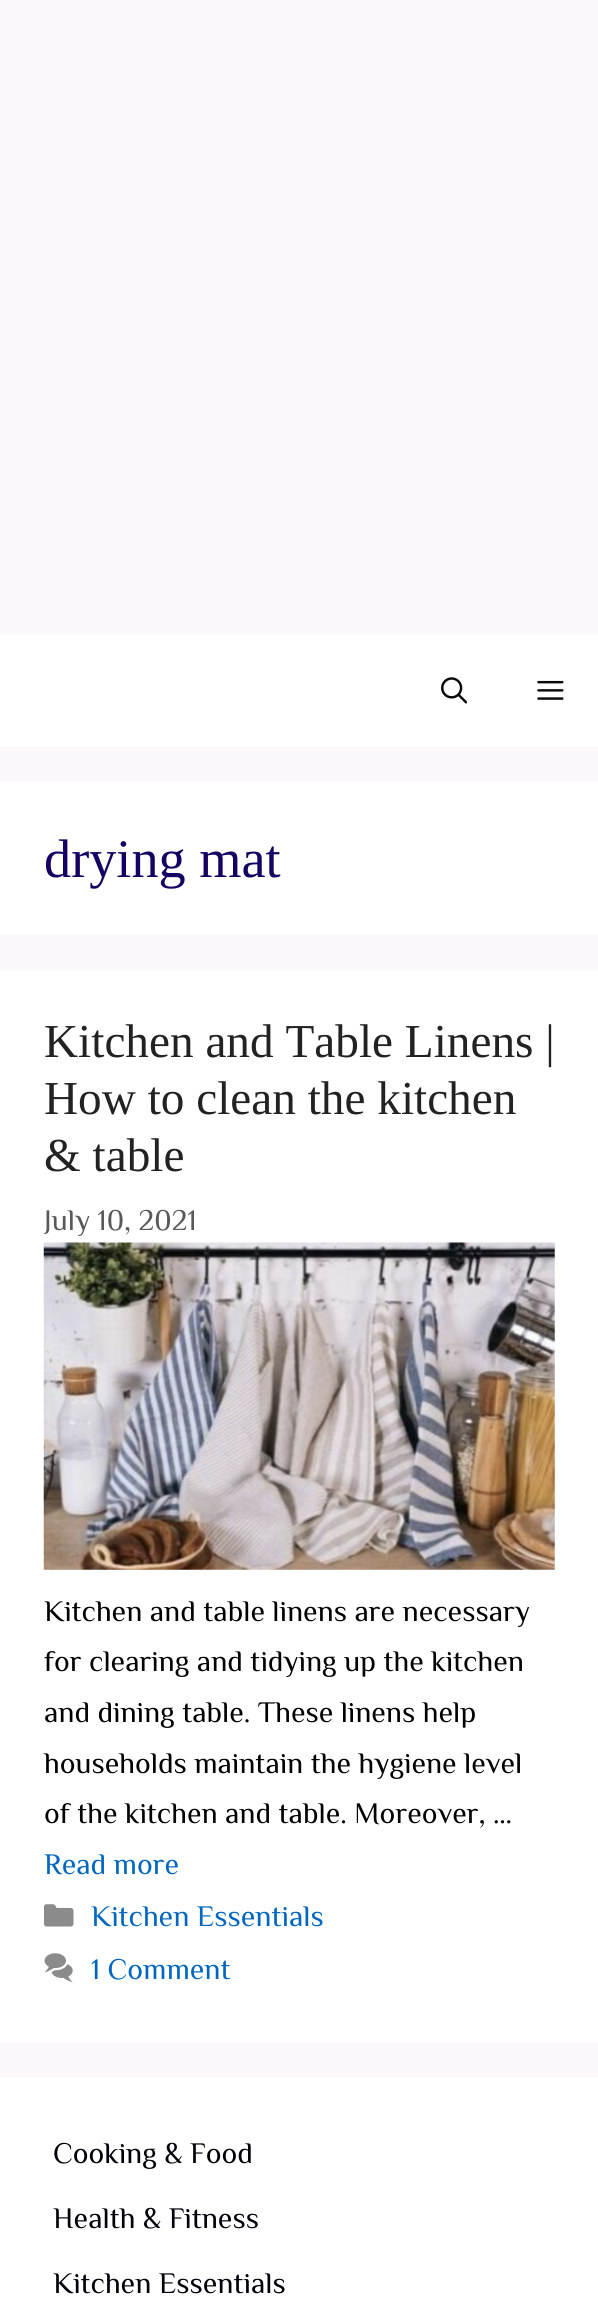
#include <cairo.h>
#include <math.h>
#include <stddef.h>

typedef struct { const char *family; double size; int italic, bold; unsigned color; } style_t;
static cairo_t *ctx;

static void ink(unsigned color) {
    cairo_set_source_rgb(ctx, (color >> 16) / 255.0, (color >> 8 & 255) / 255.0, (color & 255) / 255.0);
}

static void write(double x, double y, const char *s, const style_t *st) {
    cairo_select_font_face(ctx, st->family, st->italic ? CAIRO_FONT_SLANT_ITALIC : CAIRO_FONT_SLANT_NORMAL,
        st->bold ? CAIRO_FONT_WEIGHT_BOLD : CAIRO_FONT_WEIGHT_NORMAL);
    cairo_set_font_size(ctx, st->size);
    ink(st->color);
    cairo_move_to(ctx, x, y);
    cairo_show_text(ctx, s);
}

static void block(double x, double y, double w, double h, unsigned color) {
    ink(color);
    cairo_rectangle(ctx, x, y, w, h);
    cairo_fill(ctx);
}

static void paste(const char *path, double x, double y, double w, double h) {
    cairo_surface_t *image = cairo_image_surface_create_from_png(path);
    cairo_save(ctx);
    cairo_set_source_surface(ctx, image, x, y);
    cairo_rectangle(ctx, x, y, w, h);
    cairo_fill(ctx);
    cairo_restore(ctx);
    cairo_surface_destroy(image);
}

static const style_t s1 = {"Liberation Serif", 54.25, 0, 0, 0x150263};
static const style_t s2 = {"Liberation Serif", 47.25, 0, 0, 0x222222};
static const style_t s3 = {"Philosopher", 29.75, 0, 0, 0x595959};
static const style_t s4 = {"Philosopher", 29.75, 0, 0, 0x000000};
static const style_t s5 = {"Philosopher", 29.75, 0, 0, 0x0066bf};
static const style_t s6 = {"Philosopher", 29.75, 0, 0, 0x01000a};

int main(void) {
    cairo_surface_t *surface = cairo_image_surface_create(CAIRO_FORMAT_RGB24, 598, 2312);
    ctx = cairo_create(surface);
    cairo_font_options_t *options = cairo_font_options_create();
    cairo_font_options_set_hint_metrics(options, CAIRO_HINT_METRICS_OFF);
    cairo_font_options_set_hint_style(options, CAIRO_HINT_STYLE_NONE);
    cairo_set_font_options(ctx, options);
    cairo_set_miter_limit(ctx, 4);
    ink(0xfcf7fa);
    cairo_paint(ctx);
    block(0, 634, 598, 113, 0xffffff);
    paste("pic1.png", 441, 677, 26, 27);
    paste("pic2.png", 537, 680, 27, 20);
    block(0, 782, 598, 153, 0xffffff);
    write(44, 877, "drying mat", &s1);
    block(0, 970, 598, 1072, 0xffffff);
    write(44, 1057, "Kitchen and Table Linens |", &s2);
    write(44, 1114, "How to clean the kitchen", &s2);
    write(44, 1171, "& table", &s2);
    write(44, 1230, "July 10, 2021", &s3);
    paste("pic3.png", 43, 1242, 512, 328);
    write(44, 1621, "Kitchen and table linens are necessary", &s4);
    write(44, 1671, "for clearing and tidying up the kitchen", &s4);
    write(44, 1722, "and dining table. These linens help", &s4);
    write(44, 1773, "households maintain the hygiene level", &s4);
    write(44, 1823, "of the kitchen and table. Moreover, …", &s4);
    write(44, 1874, "Read more", &s5);
    paste("pic4.png", 44, 1904, 30, 23);
    write(91, 1926, "Kitchen Essentials", &s5);
    paste("pic5.png", 44, 1953, 29, 30);
    write(91, 1979, "1 Comment", &s5);
    block(0, 2077, 598, 235, 0xffffff);
    write(53, 2163, "Cooking & Food", &s6);
    write(53, 2228, "Health & Fitness", &s6);
    write(53, 2293, "Kitchen Essentials", &s6);
    cairo_surface_write_to_png(surface, "screenshot.png");
    cairo_font_options_destroy(options);
    cairo_destroy(ctx);
    cairo_surface_destroy(surface);
    return 0;
}
